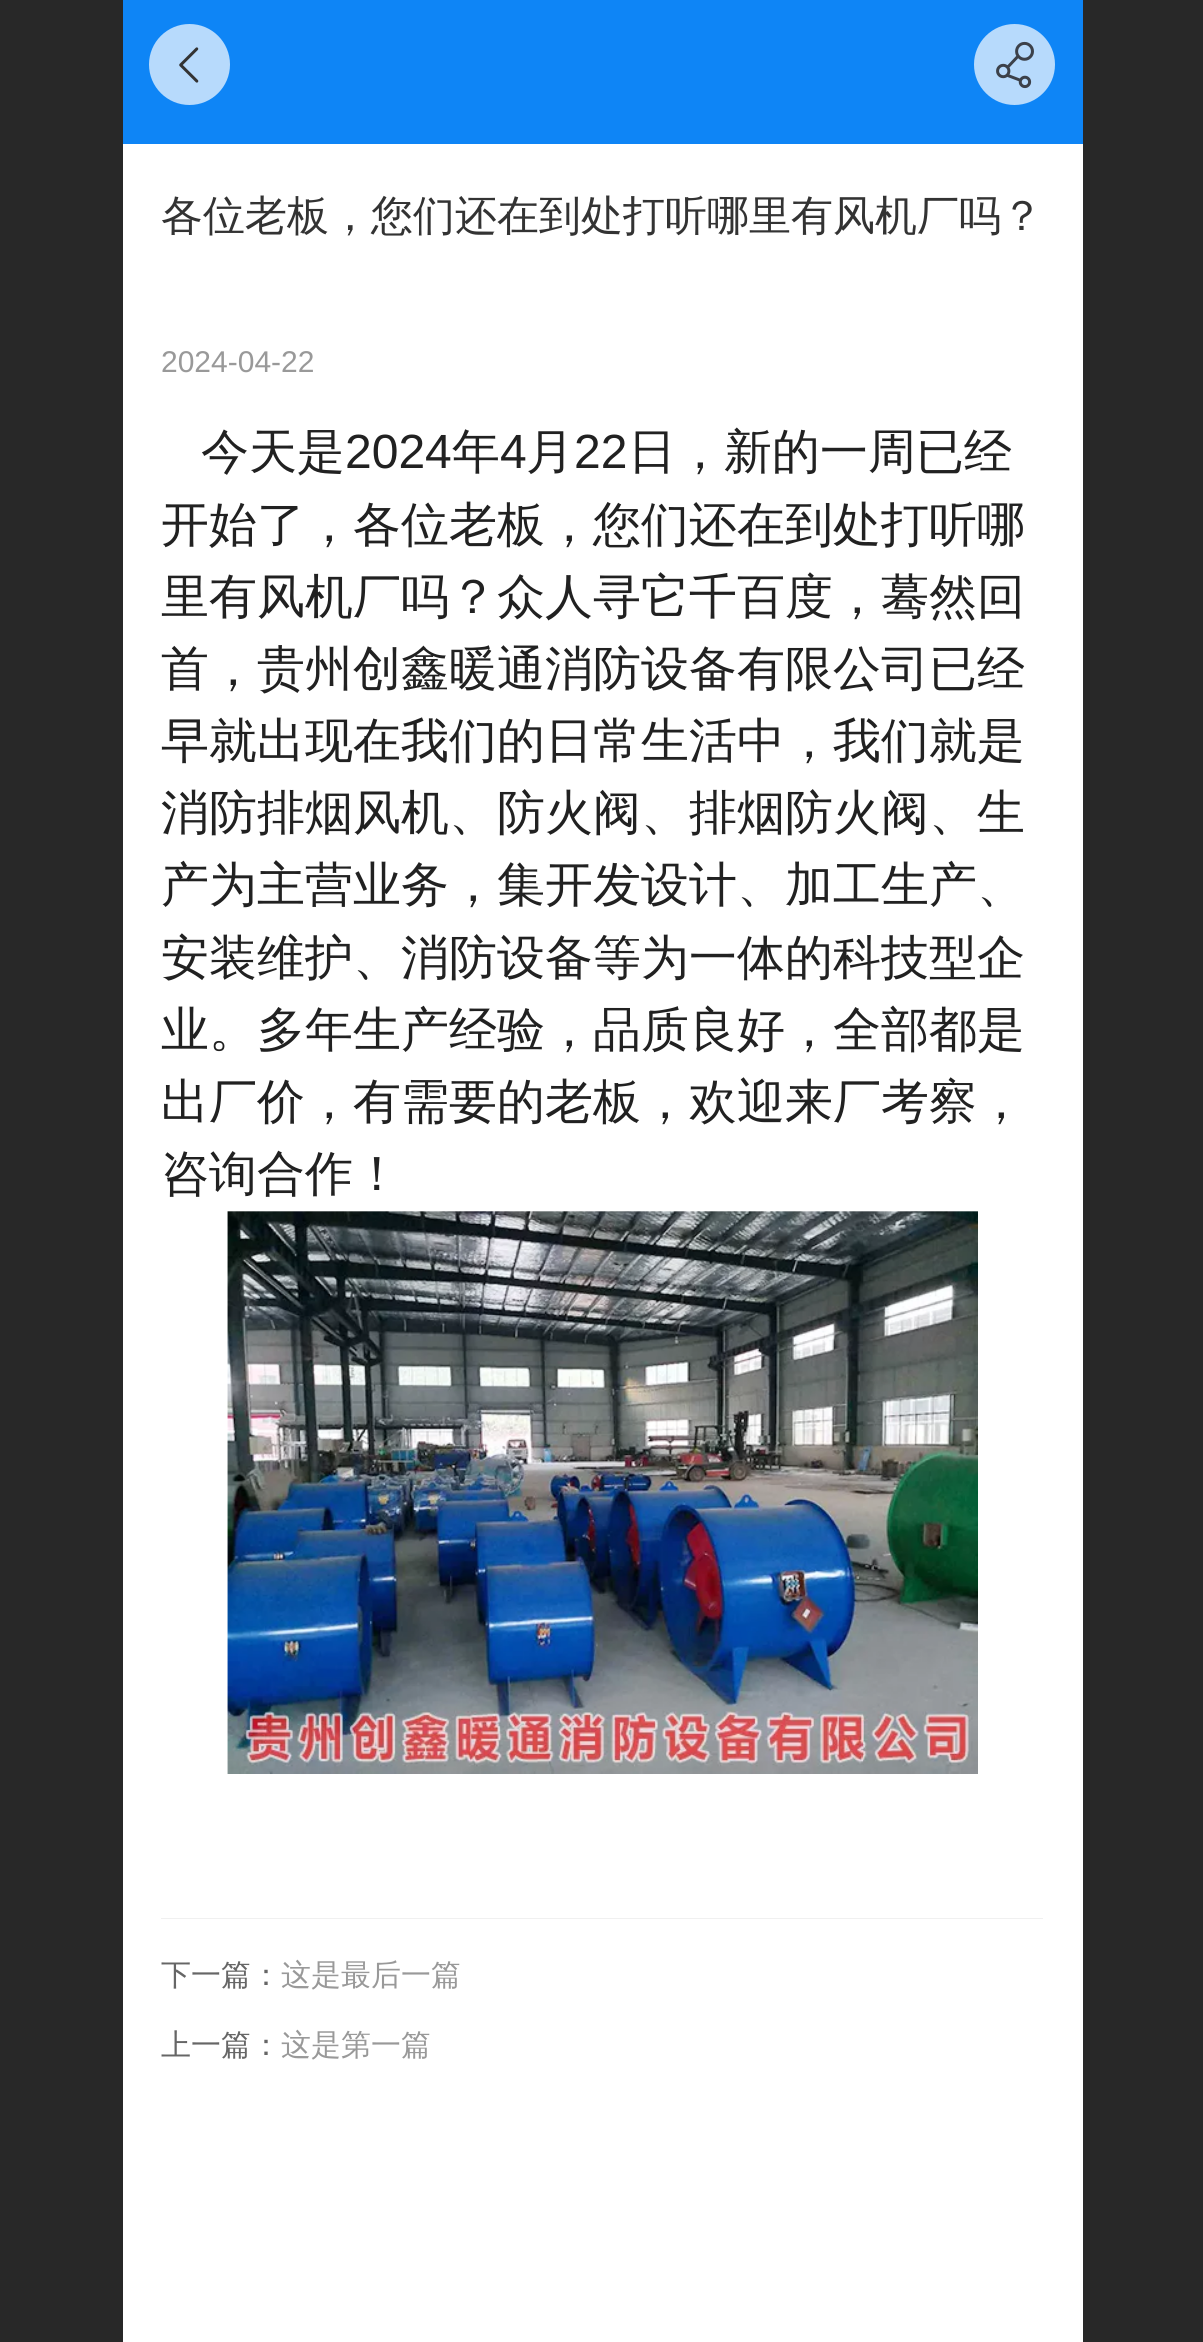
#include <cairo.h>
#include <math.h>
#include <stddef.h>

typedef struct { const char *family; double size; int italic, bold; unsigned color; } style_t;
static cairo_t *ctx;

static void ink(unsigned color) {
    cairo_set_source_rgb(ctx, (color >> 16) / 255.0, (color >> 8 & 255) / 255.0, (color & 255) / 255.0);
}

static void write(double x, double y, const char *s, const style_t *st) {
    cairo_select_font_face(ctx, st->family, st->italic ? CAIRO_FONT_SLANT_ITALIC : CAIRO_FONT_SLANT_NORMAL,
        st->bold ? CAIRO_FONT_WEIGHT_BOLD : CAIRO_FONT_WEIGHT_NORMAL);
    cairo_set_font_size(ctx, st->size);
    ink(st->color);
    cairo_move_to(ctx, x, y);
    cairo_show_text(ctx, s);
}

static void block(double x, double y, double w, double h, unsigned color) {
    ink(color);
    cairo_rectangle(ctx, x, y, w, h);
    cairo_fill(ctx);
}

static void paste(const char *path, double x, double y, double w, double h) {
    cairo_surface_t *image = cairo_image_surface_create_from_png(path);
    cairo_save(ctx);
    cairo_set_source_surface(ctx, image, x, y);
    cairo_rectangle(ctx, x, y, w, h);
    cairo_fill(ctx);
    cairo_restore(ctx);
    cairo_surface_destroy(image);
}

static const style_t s1 = {"WenQuanYi Zen Hei Medium", 42, 0, 0, 0x333333};
static const style_t s2 = {"Liberation Sans", 30, 0, 0, 0x999999};
static const style_t s3 = {"WenQuanYi Zen Hei Medium", 48, 0, 0, 0x212121};
static const style_t s4 = {"Liberation Sans", 48, 0, 0, 0x212121};
static const style_t s5 = {"WenQuanYi Zen Hei Medium", 30, 0, 0, 0x666666};
static const style_t s6 = {"WenQuanYi Zen Hei Medium", 30, 0, 0, 0x999999};

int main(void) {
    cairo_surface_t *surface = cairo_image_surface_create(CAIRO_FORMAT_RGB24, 1203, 2342);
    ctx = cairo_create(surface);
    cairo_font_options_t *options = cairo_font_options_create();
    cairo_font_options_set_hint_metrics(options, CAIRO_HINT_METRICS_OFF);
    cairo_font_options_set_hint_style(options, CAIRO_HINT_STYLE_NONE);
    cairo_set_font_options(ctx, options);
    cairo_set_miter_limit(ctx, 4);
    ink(0xffffff);
    cairo_paint(ctx);
    block(0, 0, 123, 2342, 0x282828);
    block(123, 0, 960, 144, 0x0e85f6);
    ink(0xb7dafc);
    cairo_arc(ctx, 189.5, 64.5, 40.5, 0, 2 * M_PI);
    cairo_fill(ctx);
    paste("pic1.png", 179, 47, 20, 36);
    cairo_arc(ctx, 1014.5, 64.5, 40.5, 0, 2 * M_PI);
    cairo_fill(ctx);
    paste("pic2.png", 996, 41, 38, 48);
    write(161, 230, "各位老板，您们还在到处打听哪里有风机厂吗？", &s1);
    write(161, 372, "2024-04-22", &s2);
    write(201, 468, "今天是", &s3);
    write(345, 468, "2024", &s4);
    write(452, 468, "年", &s3);
    write(500, 468, "4", &s4);
    write(526, 468, "月", &s3);
    write(574, 468, "22", &s4);
    write(628, 468, "日，新的一周已经", &s3);
    write(161, 541, "开始了，各位老板，您们还在到处打听哪", &s3);
    write(161, 613, "里有风机厂吗？众人寻它千百度，蓦然回", &s3);
    write(161, 685, "首，贵州创鑫暖通消防设备有限公司已经", &s3);
    write(161, 757, "早就出现在我们的日常生活中，我们就是", &s3);
    write(161, 829, "消防排烟风机、防火阀、排烟防火阀、生", &s3);
    write(161, 901, "产为主营业务，集开发设计、加工生产、", &s3);
    write(161, 974, "安装维护、消防设备等为一体的科技型企", &s3);
    write(161, 1046, "业。多年生产经验，品质良好，全部都是", &s3);
    write(161, 1118, "出厂价，有需要的老板，欢迎来厂考察，", &s3);
    write(161, 1190, "咨询合作！", &s3);
    paste("pic3.png", 227, 1211, 751, 563);
    block(161, 1918, 882, 1, 0xf0f0f0);
    write(161, 1985, "下一篇：", &s5);
    write(281, 1985, "这是最后一篇", &s6);
    write(161, 2055, "上一篇：", &s5);
    write(281, 2055, "这是第一篇", &s6);
    block(1083, 0, 120, 2342, 0x282828);
    cairo_surface_write_to_png(surface, "screenshot.png");
    cairo_font_options_destroy(options);
    cairo_destroy(ctx);
    cairo_surface_destroy(surface);
    return 0;
}
